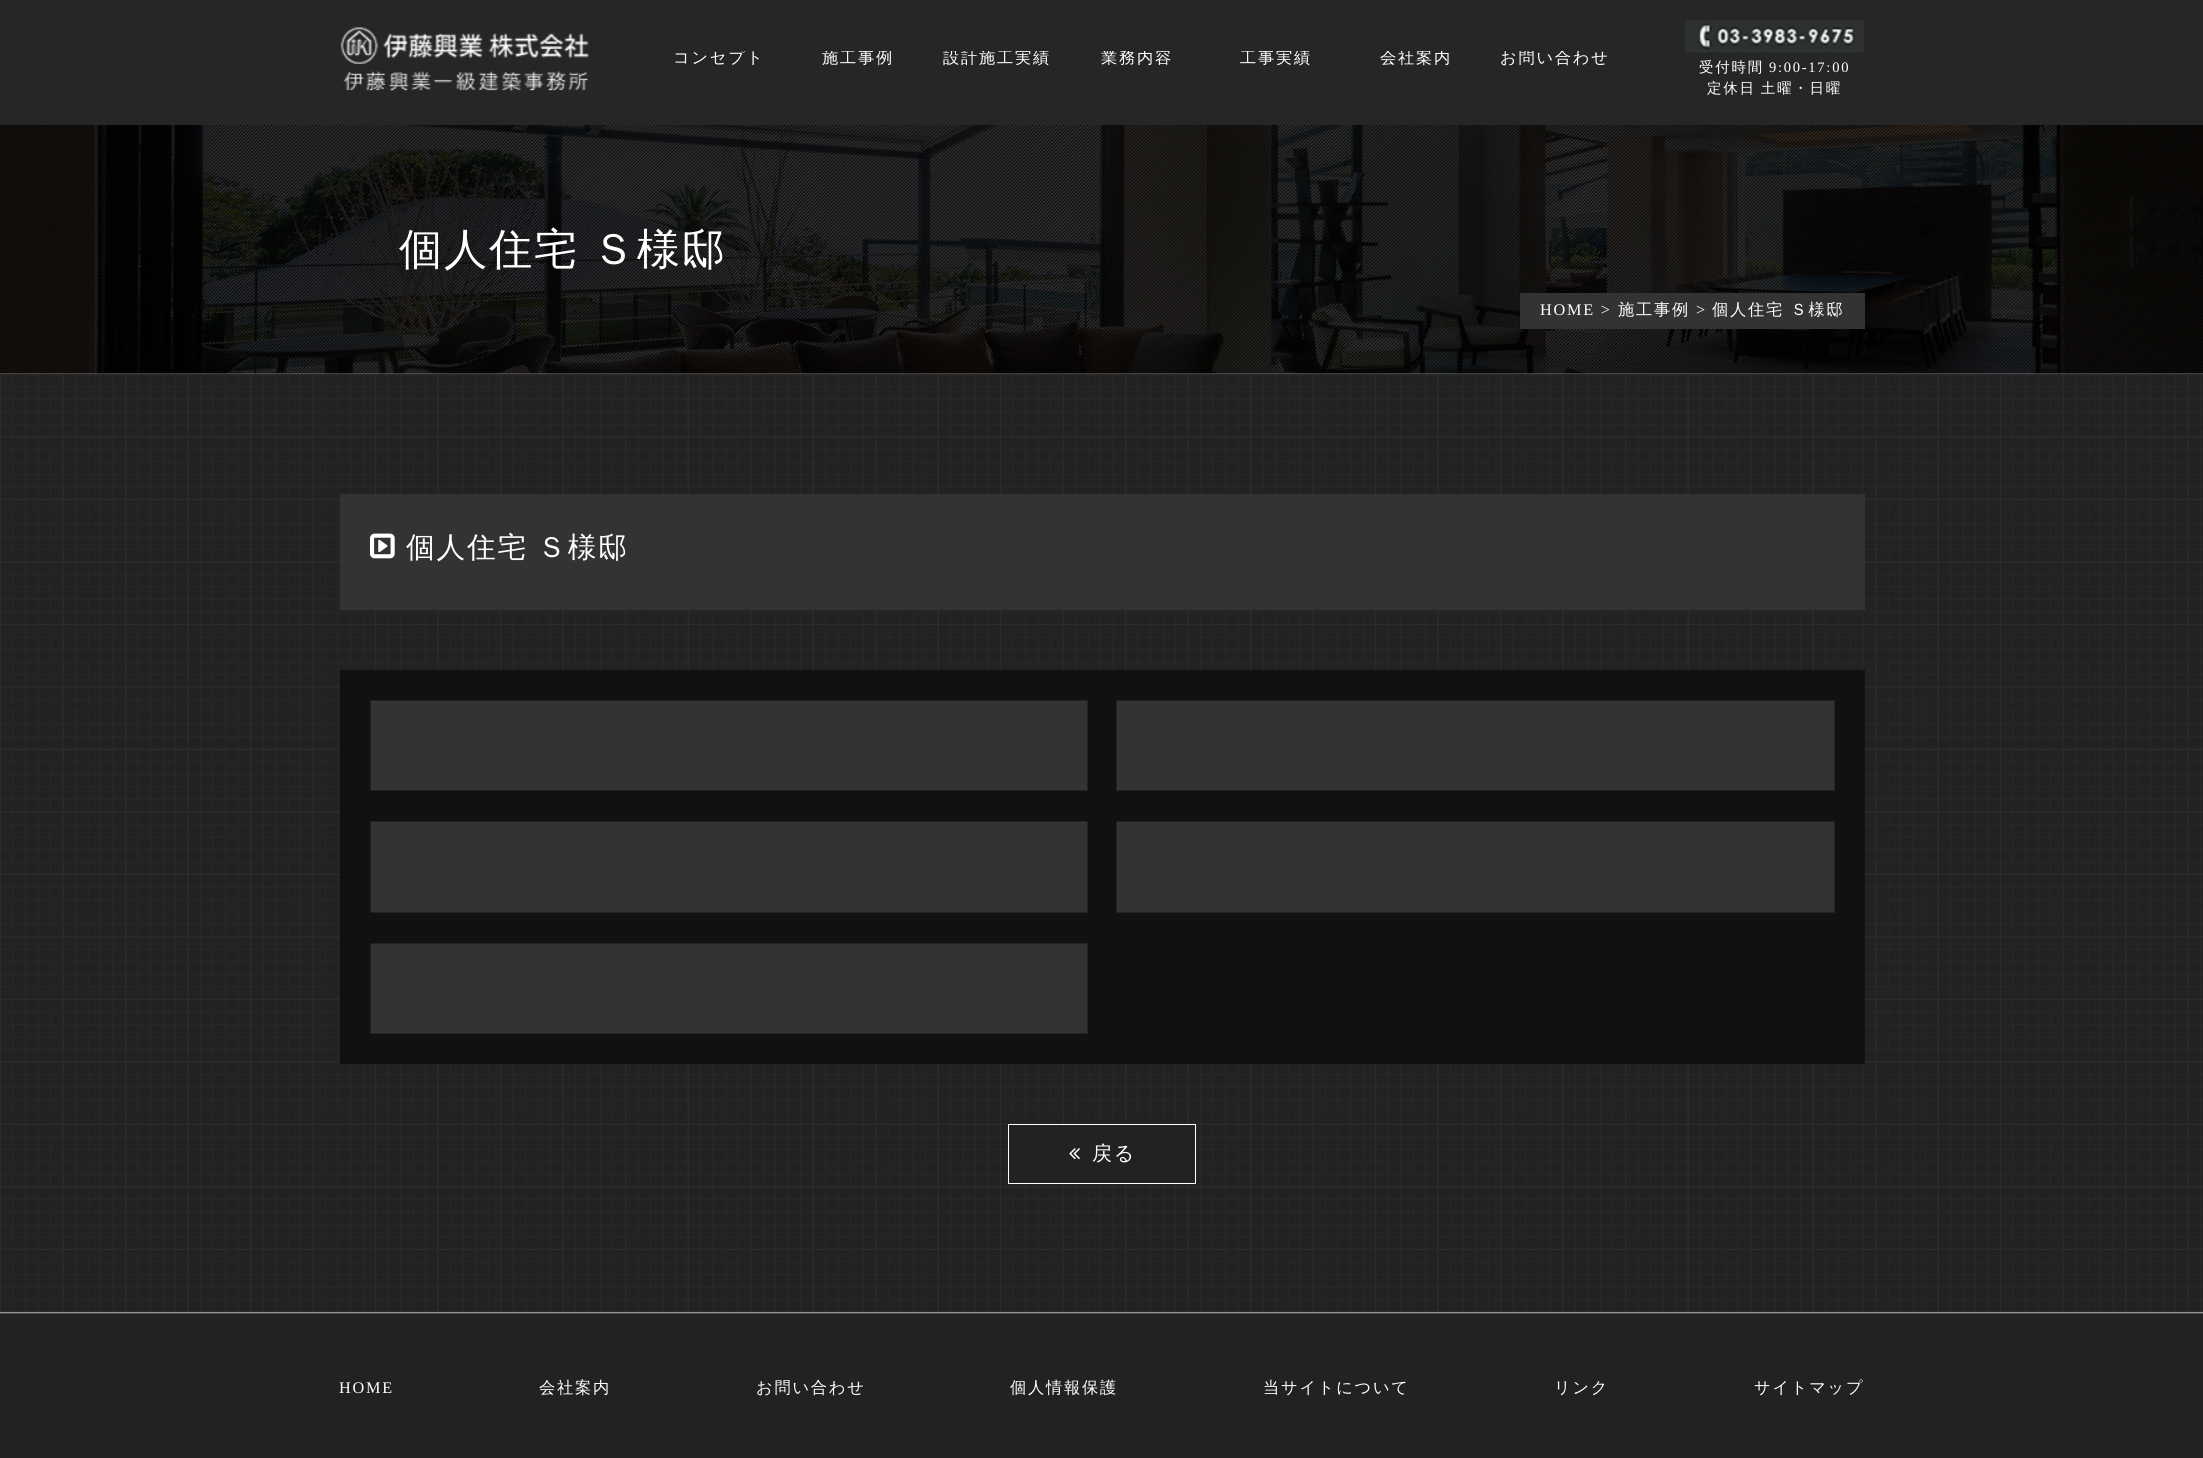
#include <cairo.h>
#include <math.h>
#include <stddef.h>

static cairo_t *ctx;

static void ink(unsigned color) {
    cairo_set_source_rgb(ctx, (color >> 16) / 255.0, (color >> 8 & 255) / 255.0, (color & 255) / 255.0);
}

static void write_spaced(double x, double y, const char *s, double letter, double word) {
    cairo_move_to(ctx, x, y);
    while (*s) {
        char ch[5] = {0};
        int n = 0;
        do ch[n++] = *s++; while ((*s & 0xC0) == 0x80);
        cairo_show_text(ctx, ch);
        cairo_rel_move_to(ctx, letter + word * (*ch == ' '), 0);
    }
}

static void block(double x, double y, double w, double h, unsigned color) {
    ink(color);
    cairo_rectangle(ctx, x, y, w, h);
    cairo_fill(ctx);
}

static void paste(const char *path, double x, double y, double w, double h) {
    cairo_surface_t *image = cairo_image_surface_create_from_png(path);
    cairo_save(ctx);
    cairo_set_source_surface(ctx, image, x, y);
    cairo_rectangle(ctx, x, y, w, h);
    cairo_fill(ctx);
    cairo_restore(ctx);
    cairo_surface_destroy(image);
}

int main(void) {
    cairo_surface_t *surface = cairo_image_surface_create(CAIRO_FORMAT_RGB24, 2203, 1458);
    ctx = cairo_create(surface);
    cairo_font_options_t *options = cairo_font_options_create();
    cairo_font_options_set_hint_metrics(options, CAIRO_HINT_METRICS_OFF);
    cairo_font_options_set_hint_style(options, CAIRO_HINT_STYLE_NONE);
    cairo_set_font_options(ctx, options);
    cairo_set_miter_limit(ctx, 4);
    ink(0xffffff);
    cairo_paint(ctx);
    block(0, 0, 2203, 125, 0x262626);
    paste("pic1.png", 340, 27, 249, 65);
    cairo_save(ctx);
    cairo_rectangle(ctx, 659, 51, 120, 17);
    cairo_clip(ctx);
    cairo_select_font_face(ctx, "WenQuanYi Zen Hei Medium", CAIRO_FONT_SLANT_NORMAL, CAIRO_FONT_WEIGHT_NORMAL);
    cairo_set_font_size(ctx, 16.25);
    ink(0xffffff);
    write_spaced(673, 63, "コンセプト", 1.75, 0);
    cairo_restore(ctx);
    cairo_save(ctx);
    cairo_rectangle(ctx, 799, 51, 119, 17);
    cairo_clip(ctx);
    cairo_select_font_face(ctx, "WenQuanYi Zen Hei Medium", CAIRO_FONT_SLANT_NORMAL, CAIRO_FONT_WEIGHT_NORMAL);
    cairo_set_font_size(ctx, 16.25);
    ink(0xffffff);
    write_spaced(822, 63, "施工事例", 1.75, 0);
    cairo_restore(ctx);
    cairo_save(ctx);
    cairo_rectangle(ctx, 938, 51, 120, 17);
    cairo_clip(ctx);
    cairo_select_font_face(ctx, "WenQuanYi Zen Hei Medium", CAIRO_FONT_SLANT_NORMAL, CAIRO_FONT_WEIGHT_NORMAL);
    cairo_set_font_size(ctx, 16.25);
    ink(0xffffff);
    write_spaced(943, 63, "設計施工実績", 1.75, 0);
    cairo_restore(ctx);
    cairo_save(ctx);
    cairo_rectangle(ctx, 1078, 51, 118, 17);
    cairo_clip(ctx);
    cairo_select_font_face(ctx, "WenQuanYi Zen Hei Medium", CAIRO_FONT_SLANT_NORMAL, CAIRO_FONT_WEIGHT_NORMAL);
    cairo_set_font_size(ctx, 16.25);
    ink(0xffffff);
    write_spaced(1101, 63, "業務内容", 1.75, 0);
    cairo_restore(ctx);
    cairo_save(ctx);
    cairo_rectangle(ctx, 1216, 51, 120, 17);
    cairo_clip(ctx);
    cairo_select_font_face(ctx, "WenQuanYi Zen Hei Medium", CAIRO_FONT_SLANT_NORMAL, CAIRO_FONT_WEIGHT_NORMAL);
    cairo_set_font_size(ctx, 16.25);
    ink(0xffffff);
    write_spaced(1240, 63, "工事実績", 1.75, 0);
    cairo_restore(ctx);
    cairo_save(ctx);
    cairo_rectangle(ctx, 1356, 51, 119, 17);
    cairo_clip(ctx);
    cairo_select_font_face(ctx, "WenQuanYi Zen Hei Medium", CAIRO_FONT_SLANT_NORMAL, CAIRO_FONT_WEIGHT_NORMAL);
    cairo_set_font_size(ctx, 16.25);
    ink(0xffffff);
    write_spaced(1380, 63, "会社案内", 1.75, 0);
    cairo_restore(ctx);
    cairo_save(ctx);
    cairo_rectangle(ctx, 1495, 51, 120, 17);
    cairo_clip(ctx);
    cairo_select_font_face(ctx, "WenQuanYi Zen Hei Medium", CAIRO_FONT_SLANT_NORMAL, CAIRO_FONT_WEIGHT_NORMAL);
    cairo_set_font_size(ctx, 16.25);
    ink(0xffffff);
    write_spaced(1500, 63, "お問い合わせ", 1.75, 0);
    cairo_restore(ctx);
    paste("pic2.png", 1685, 20, 179, 33);
    cairo_select_font_face(ctx, "WenQuanYi Zen Hei Medium", CAIRO_FONT_SLANT_NORMAL, CAIRO_FONT_WEIGHT_NORMAL);
    cairo_set_font_size(ctx, 14.5);
    ink(0xffffff);
    write_spaced(1699, 72, "受付時間", 1.75, 0);
    cairo_select_font_face(ctx, "Liberation Serif", CAIRO_FONT_SLANT_NORMAL, CAIRO_FONT_WEIGHT_NORMAL);
    write_spaced(1769, 72, "9:00-17:00", 1.75, 0);
    cairo_select_font_face(ctx, "WenQuanYi Zen Hei Medium", CAIRO_FONT_SLANT_NORMAL, CAIRO_FONT_WEIGHT_NORMAL);
    write_spaced(1707, 93, "定休日 土曜・日曜", 1.75, -1);
    paste("pic3.png", 0, 125, 2203, 249);
    cairo_set_font_size(ctx, 43.25);
    write_spaced(399, 264, "個人住宅 Ｓ様邸", 1.75, -2);
    block(1520, 293, 345, 36, 0x333333);
    cairo_select_font_face(ctx, "Liberation Serif", CAIRO_FONT_SLANT_NORMAL, CAIRO_FONT_WEIGHT_NORMAL);
    cairo_set_font_size(ctx, 16.25);
    ink(0xffffff);
    write_spaced(1540, 315, "HOME >", 1.75, 0);
    cairo_select_font_face(ctx, "WenQuanYi Zen Hei Medium", CAIRO_FONT_SLANT_NORMAL, CAIRO_FONT_WEIGHT_NORMAL);
    write_spaced(1618, 315, "施工事例", 1.75, 0);
    cairo_select_font_face(ctx, "Liberation Serif", CAIRO_FONT_SLANT_NORMAL, CAIRO_FONT_WEIGHT_NORMAL);
    write_spaced(1696, 315, ">", 1.75, 0);
    cairo_select_font_face(ctx, "WenQuanYi Zen Hei Medium", CAIRO_FONT_SLANT_NORMAL, CAIRO_FONT_WEIGHT_NORMAL);
    write_spaced(1712, 315, "個人住宅 Ｓ様邸", 1.75, 0);
    paste("pic4.png", 0, 373, 2203, 940);
    block(340, 494, 1525, 116, 0x333333);
    paste("pic5.png", 370, 533, 25, 26);
    cairo_set_font_size(ctx, 28.75);
    ink(0xffffff);
    write_spaced(406, 557, "個人住宅 Ｓ様邸", 1.75, -1);
    block(340, 670, 1525, 394, 0x111111);
    ink(0x333333);
    cairo_rectangle(ctx, 370.5, 700.5, 717, 90);
    cairo_fill_preserve(ctx);
    ink(0x222222);
    cairo_set_line_width(ctx, 1);
    cairo_stroke(ctx);
    ink(0x333333);
    cairo_rectangle(ctx, 1116.5, 700.5, 718, 90);
    cairo_fill_preserve(ctx);
    ink(0x222222);
    cairo_stroke(ctx);
    ink(0x333333);
    cairo_rectangle(ctx, 370.5, 821.5, 717, 91);
    cairo_fill_preserve(ctx);
    ink(0x222222);
    cairo_stroke(ctx);
    ink(0x333333);
    cairo_rectangle(ctx, 1116.5, 821.5, 718, 91);
    cairo_fill_preserve(ctx);
    ink(0x222222);
    cairo_stroke(ctx);
    ink(0x333333);
    cairo_rectangle(ctx, 370.5, 943.5, 717, 90);
    cairo_fill_preserve(ctx);
    ink(0x222222);
    cairo_stroke(ctx);
    cairo_rectangle(ctx, 1008.5, 1124.5, 187, 59);
    cairo_fill_preserve(ctx);
    ink(0xffffff);
    cairo_stroke(ctx);
    paste("pic6.png", 1069, 1148, 11, 12);
    cairo_set_font_size(ctx, 20);
    write_spaced(1092, 1160, "戻る", 1.75, 0);
    block(0, 1314, 2203, 144, 0x222222);
    block(0, 1313, 2203, 1, 0x4b4b4b);
    cairo_select_font_face(ctx, "Liberation Serif", CAIRO_FONT_SLANT_NORMAL, CAIRO_FONT_WEIGHT_NORMAL);
    cairo_set_font_size(ctx, 16.25);
    ink(0xffffff);
    write_spaced(339, 1393, "HOME", 1.75, 0);
    cairo_select_font_face(ctx, "WenQuanYi Zen Hei Medium", CAIRO_FONT_SLANT_NORMAL, CAIRO_FONT_WEIGHT_NORMAL);
    write_spaced(539, 1393, "会社案内", 1.75, 0);
    write_spaced(756, 1393, "お問い合わせ", 1.75, 0);
    write_spaced(1010, 1393, "個人情報保護", 1.75, 0);
    write_spaced(1263, 1393, "当サイトについて", 1.75, 0);
    write_spaced(1554, 1393, "リンク", 1.75, 0);
    write_spaced(1754, 1393, "サイトマップ", 1.75, 0);
    cairo_surface_write_to_png(surface, "screenshot.png");
    cairo_font_options_destroy(options);
    cairo_destroy(ctx);
    cairo_surface_destroy(surface);
    return 0;
}
